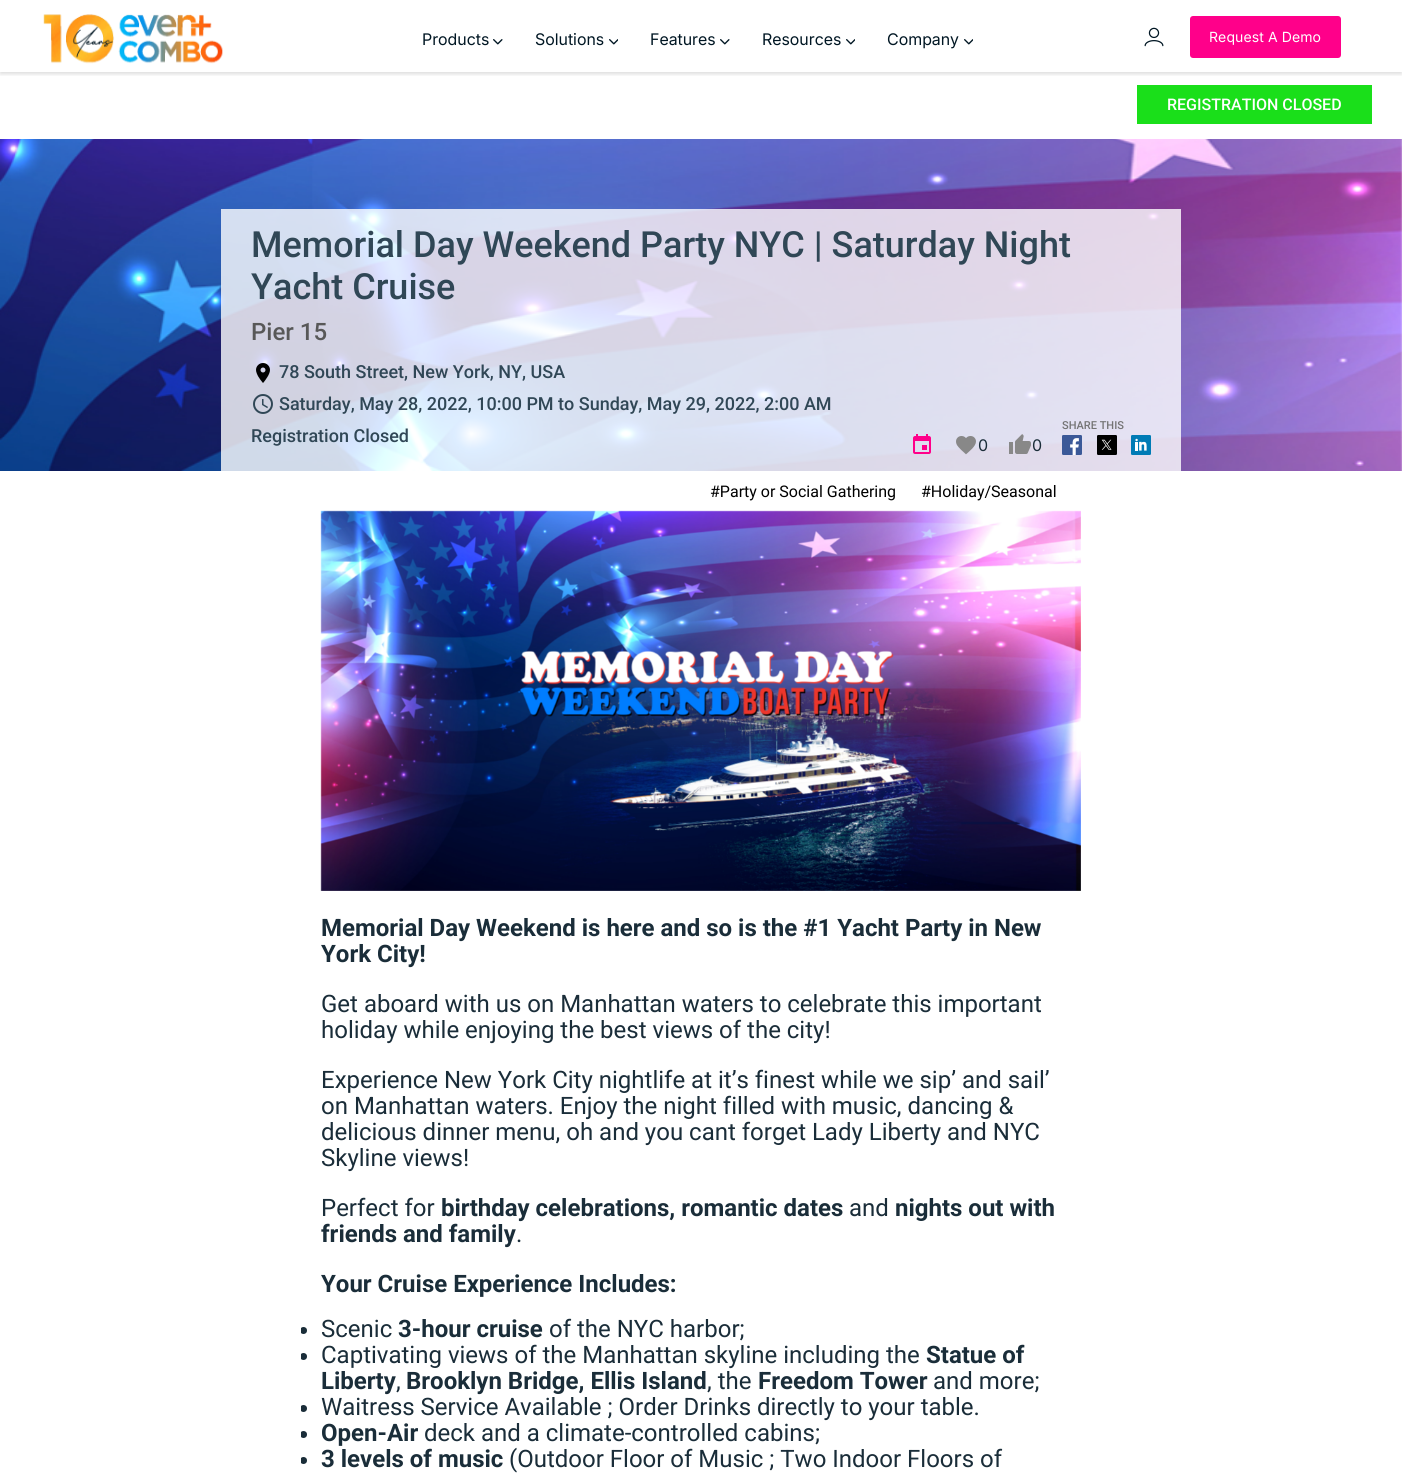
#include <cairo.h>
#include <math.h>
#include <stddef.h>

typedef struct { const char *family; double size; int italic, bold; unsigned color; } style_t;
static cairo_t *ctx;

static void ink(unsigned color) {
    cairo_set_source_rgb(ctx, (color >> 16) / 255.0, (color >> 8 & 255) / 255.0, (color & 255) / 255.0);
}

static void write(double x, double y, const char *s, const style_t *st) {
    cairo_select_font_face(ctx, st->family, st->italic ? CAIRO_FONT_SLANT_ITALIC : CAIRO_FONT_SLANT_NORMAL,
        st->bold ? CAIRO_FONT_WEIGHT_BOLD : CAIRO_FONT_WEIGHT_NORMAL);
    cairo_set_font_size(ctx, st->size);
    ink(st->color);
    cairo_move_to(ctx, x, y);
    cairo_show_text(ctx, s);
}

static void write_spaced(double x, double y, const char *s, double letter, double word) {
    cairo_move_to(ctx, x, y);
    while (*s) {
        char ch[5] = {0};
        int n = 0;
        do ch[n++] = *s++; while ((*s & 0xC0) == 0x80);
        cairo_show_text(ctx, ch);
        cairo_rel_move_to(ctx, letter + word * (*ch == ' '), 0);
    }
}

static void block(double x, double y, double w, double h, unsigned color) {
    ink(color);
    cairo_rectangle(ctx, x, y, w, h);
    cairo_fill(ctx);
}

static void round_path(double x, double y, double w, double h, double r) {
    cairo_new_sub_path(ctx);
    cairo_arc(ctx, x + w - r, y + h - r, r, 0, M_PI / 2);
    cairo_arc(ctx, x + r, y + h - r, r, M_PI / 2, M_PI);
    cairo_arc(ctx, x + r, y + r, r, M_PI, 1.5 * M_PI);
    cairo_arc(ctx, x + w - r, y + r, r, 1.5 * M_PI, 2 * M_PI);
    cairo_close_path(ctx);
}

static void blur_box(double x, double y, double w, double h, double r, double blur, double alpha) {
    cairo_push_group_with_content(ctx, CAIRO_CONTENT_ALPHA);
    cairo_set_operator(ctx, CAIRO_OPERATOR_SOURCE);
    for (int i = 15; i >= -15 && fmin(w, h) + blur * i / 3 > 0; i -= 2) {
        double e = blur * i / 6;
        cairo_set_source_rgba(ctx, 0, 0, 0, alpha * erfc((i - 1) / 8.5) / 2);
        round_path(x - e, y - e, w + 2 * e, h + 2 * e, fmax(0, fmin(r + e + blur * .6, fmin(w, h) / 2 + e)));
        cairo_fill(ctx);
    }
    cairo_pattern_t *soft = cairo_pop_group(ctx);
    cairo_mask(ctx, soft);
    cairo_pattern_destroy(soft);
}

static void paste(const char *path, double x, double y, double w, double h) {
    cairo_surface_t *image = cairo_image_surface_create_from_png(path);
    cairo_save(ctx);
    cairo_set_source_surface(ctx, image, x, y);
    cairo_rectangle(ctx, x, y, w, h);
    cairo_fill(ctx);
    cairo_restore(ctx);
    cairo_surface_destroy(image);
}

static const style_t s1 = {"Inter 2", 16, 0, 0, 0x001623};
static const style_t s2 = {"Roboto Medium", 16, 0, 0, 0xffffff};
static const style_t s3 = {"Roboto Medium", 36, 0, 0, 0x304756};
static const style_t s4 = {"Roboto Medium", 24, 0, 0, 0x585858};
static const style_t s5 = {"Roboto Medium", 18, 0, 0, 0x304756};
static const style_t s6 = {"Roboto Medium", 11, 0, 0, 0x747474};
static const style_t s7 = {"Inter", 16, 0, 0, 0x1a2d39};
static const style_t s8 = {"Roboto", 16, 0, 0, 0x000000};
static const style_t s9 = {"Roboto", 24, 0, 1, 0x1a2d39};
static const style_t s10 = {"Roboto", 24, 0, 0, 0x1a2d39};

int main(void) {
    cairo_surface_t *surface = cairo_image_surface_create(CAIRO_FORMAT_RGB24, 1402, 1479);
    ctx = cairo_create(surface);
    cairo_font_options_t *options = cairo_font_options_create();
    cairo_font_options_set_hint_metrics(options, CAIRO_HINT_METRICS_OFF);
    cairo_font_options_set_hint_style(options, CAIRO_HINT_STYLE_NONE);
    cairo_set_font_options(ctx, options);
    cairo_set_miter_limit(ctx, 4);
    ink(0xffffff);
    cairo_paint(ctx);
    cairo_save(ctx);
    cairo_rectangle(ctx, 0, 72, 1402, 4);
    cairo_clip(ctx);
    ink(0x000000);
    blur_box(0, 2, 1402, 72, 0, 2, 0.14);
    cairo_restore(ctx);
    paste("pic1.png", 43, 14, 180, 50);
    write(422, 45, "Products", &s1);
    paste("pic2.png", 493, 39, 10, 6);
    write(535, 45, "Solutions", &s1);
    paste("pic3.png", 609, 39, 9, 6);
    write(650, 45, "Features", &s1);
    paste("pic2.png", 720, 39, 10, 6);
    write(762, 45, "Resources", &s1);
    paste("pic3.png", 846, 39, 9, 6);
    write(887, 45, "Company", &s1);
    paste("pic3.png", 964, 39, 9, 6);
    paste("pic4.png", 1144, 27, 20, 20);
    ink(0xff008a);
    round_path(1190, 16, 151, 42, 3);
    cairo_fill(ctx);
    cairo_select_font_face(ctx, "Inter", CAIRO_FONT_SLANT_NORMAL, CAIRO_FONT_WEIGHT_NORMAL);
    cairo_set_font_size(ctx, 14);
    ink(0xffffff);
    write_spaced(1209, 42, "Request A Demo", 0.1, 0);
    block(1137, 85, 235, 39, 0x1adf1a);
    write(1167, 110, "REGISTRATION CLOSED", &s2);
    paste("pic5.png", 0, 139, 1402, 332);
    cairo_set_source_rgba(ctx, 1, 1, 1, 0.8);
    cairo_rectangle(ctx, 221, 209, 960, 262);
    cairo_fill(ctx);
    write(251, 257, "Memorial Day Weekend Party NYC | Saturday Night", &s3);
    write(251, 299, "Yacht Cruise", &s3);
    write(251, 340, "Pier 15", &s4);
    paste("pic6.png", 256, 363, 14, 20);
    write(279, 378, "78 South Street, New York, NY, USA", &s5);
    paste("pic7.png", 253, 394, 20, 20);
    write(279, 410, "Saturday, May 28, 2022, 10:00 PM to Sunday, May 29, 2022, 2:00 AM", &s5);
    write(251, 442, "Registration Closed", &s5);
    write(1062, 429, "SHARE THIS", &s6);
    paste("pic8.png", 1062, 435, 20, 20);
    paste("pic9.png", 1097, 435, 20, 20);
    paste("pic10.png", 1131, 435, 20, 20);
    paste("pic11.png", 913, 434, 18, 20);
    paste("pic12.png", 956, 436, 20, 19);
    write(978, 451, "0", &s7);
    paste("pic13.png", 1009, 434, 22, 20);
    write(1032, 451, "0", &s7);
    write(710, 497, "#Party or Social Gathering", &s8);
    write(921, 497, "#Holiday/Seasonal", &s8);
    paste("pic14.png", 320, 510, 761, 381);
    write(321, 936, "Memorial Day Weekend is here and so is the #1 Yacht Party in New", &s9);
    write(321, 962, "York City!", &s9);
    write(321, 1012, "Get aboard with us on Manhattan waters to celebrate this important", &s10);
    write(321, 1038, "holiday while enjoying the best views of the city!", &s10);
    write(321, 1088, "Experience New York City nightlife at it’s finest while we sip’ and sail’", &s10);
    write(321, 1114, "on Manhattan waters. Enjoy the night filled with music, dancing &", &s10);
    write(321, 1140, "delicious dinner menu, oh and you cant forget Lady Liberty and NYC", &s10);
    write(321, 1166, "Skyline views!", &s10);
    write(321, 1216, "Perfect for", &s10);
    write(441, 1216, "birthday celebrations, romantic dates", &s9);
    write(849, 1216, "and", &s10);
    write(895, 1216, "nights out with", &s9);
    write(321, 1242, "friends and family", &s9);
    write(516, 1242, ".", &s10);
    write(321, 1292, "Your Cruise Experience Includes:", &s9);
    cairo_save(ctx);
    cairo_rectangle(ctx, 301, 895, 800, 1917);
    cairo_clip(ctx);
    cairo_arc(ctx, 303.5, 1330.5, 3.5, 0, 2 * M_PI);
    cairo_fill(ctx);
    cairo_restore(ctx);
    write(321, 1337, "Scenic", &s10);
    write(398, 1337, "3-hour cruise", &s9);
    write(549, 1337, "of the NYC harbor;", &s10);
    cairo_save(ctx);
    cairo_rectangle(ctx, 301, 895, 800, 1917);
    cairo_clip(ctx);
    cairo_arc(ctx, 303.5, 1356.5, 3.5, 0, 2 * M_PI);
    cairo_fill(ctx);
    cairo_restore(ctx);
    write(321, 1363, "Captivating views of the Manhattan skyline including the", &s10);
    write(926, 1363, "Statue of", &s9);
    write(321, 1389, "Liberty", &s9);
    write(396, 1389, ",", &s10);
    write(406, 1389, "Brooklyn Bridge, Ellis Island", &s9);
    write(707, 1389, ", the", &s10);
    write(758, 1389, "Freedom Tower", &s9);
    write(933, 1389, "and more;", &s10);
    cairo_save(ctx);
    cairo_rectangle(ctx, 301, 895, 800, 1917);
    cairo_clip(ctx);
    cairo_arc(ctx, 303.5, 1408.5, 3.5, 0, 2 * M_PI);
    cairo_fill(ctx);
    cairo_restore(ctx);
    write(321, 1415, "Waitress Service Available ; Order Drinks directly to your table.", &s10);
    cairo_save(ctx);
    cairo_rectangle(ctx, 301, 895, 800, 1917);
    cairo_clip(ctx);
    cairo_arc(ctx, 303.5, 1434.5, 3.5, 0, 2 * M_PI);
    cairo_fill(ctx);
    cairo_restore(ctx);
    write(321, 1441, "Open-Air", &s9);
    write(424, 1441, "deck and a climate-controlled cabins;", &s10);
    cairo_save(ctx);
    cairo_rectangle(ctx, 301, 895, 800, 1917);
    cairo_clip(ctx);
    cairo_arc(ctx, 303.5, 1460.5, 3.5, 0, 2 * M_PI);
    cairo_fill(ctx);
    cairo_restore(ctx);
    write(321, 1467, "3 levels of music", &s9);
    write(509, 1467, "(Outdoor Floor of Music ; Two Indoor Floors of", &s10);
    cairo_surface_write_to_png(surface, "screenshot.png");
    cairo_font_options_destroy(options);
    cairo_destroy(ctx);
    cairo_surface_destroy(surface);
    return 0;
}
